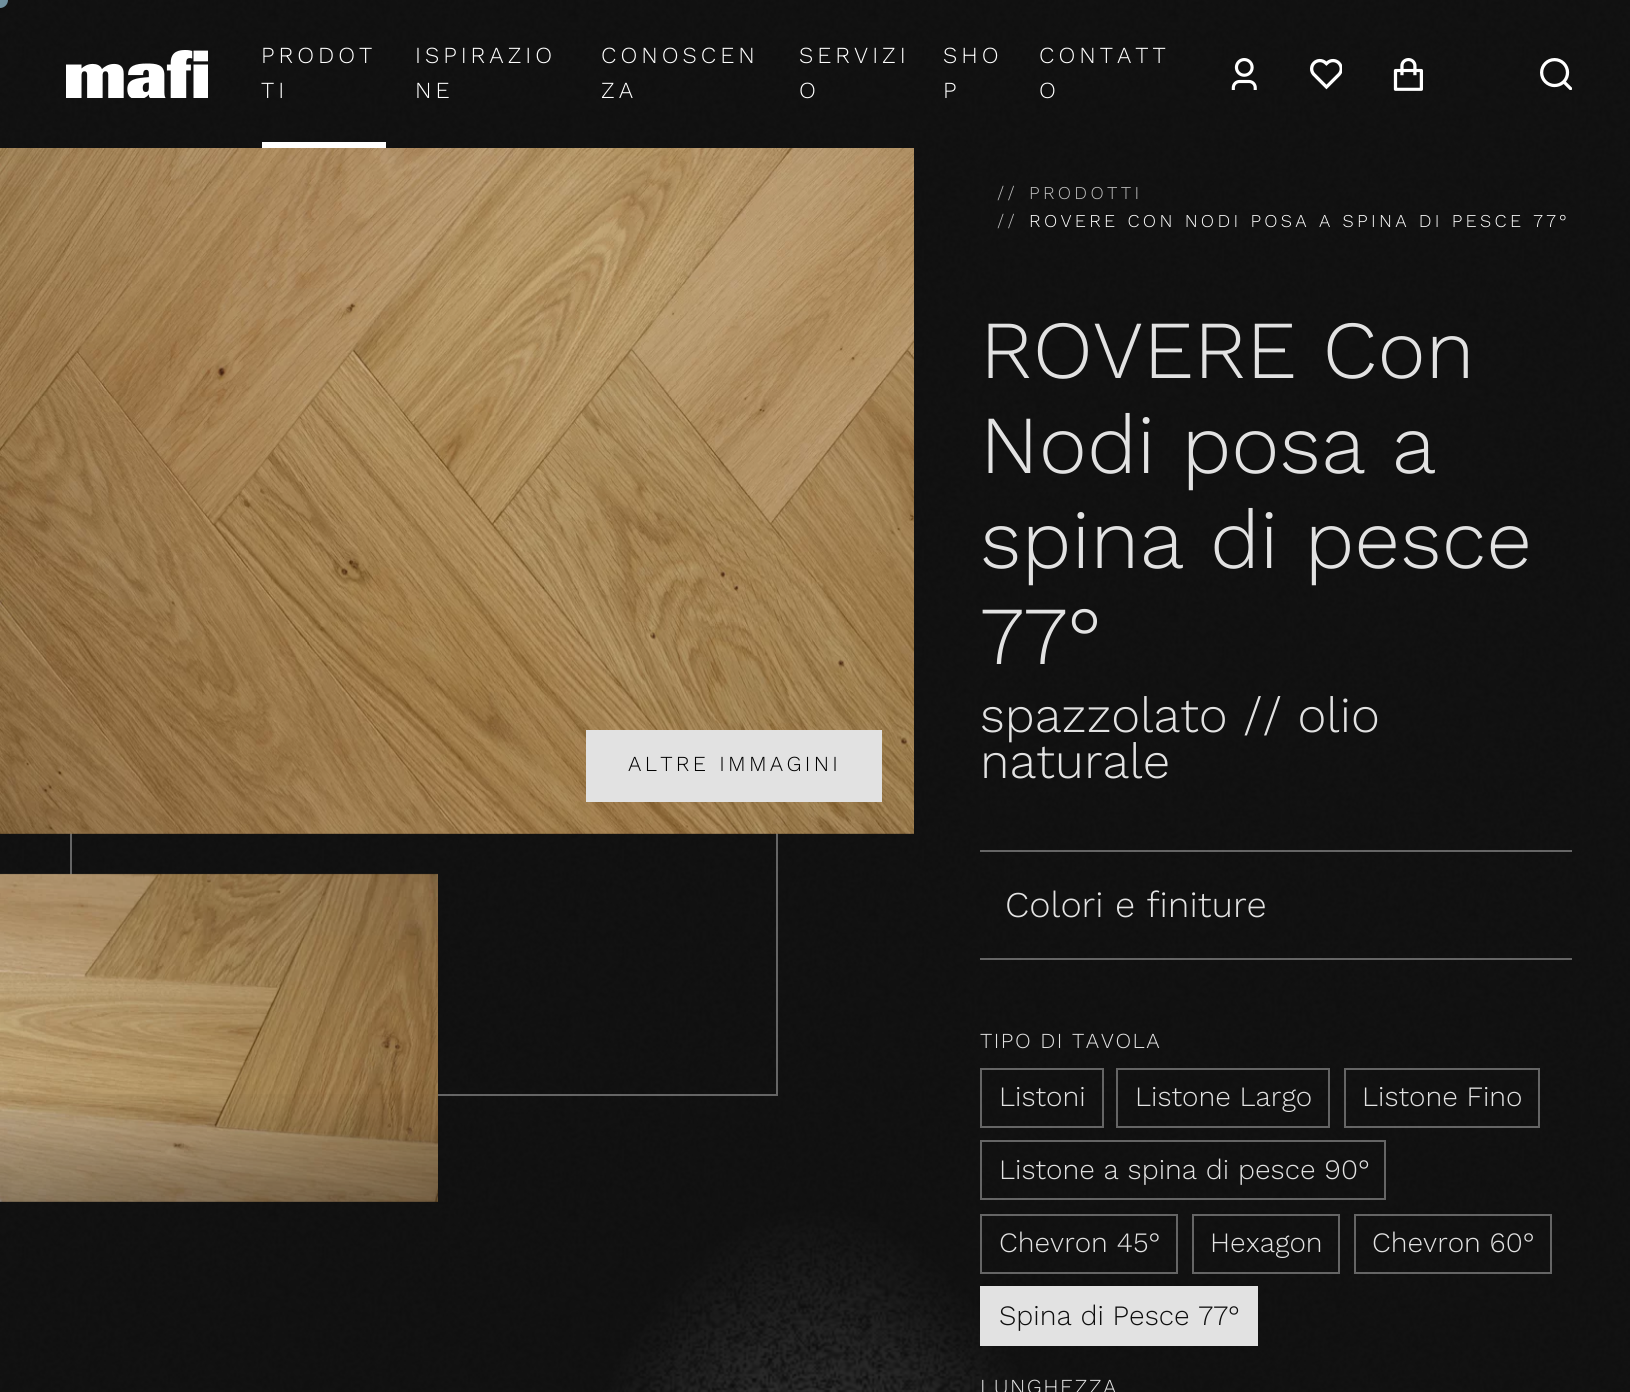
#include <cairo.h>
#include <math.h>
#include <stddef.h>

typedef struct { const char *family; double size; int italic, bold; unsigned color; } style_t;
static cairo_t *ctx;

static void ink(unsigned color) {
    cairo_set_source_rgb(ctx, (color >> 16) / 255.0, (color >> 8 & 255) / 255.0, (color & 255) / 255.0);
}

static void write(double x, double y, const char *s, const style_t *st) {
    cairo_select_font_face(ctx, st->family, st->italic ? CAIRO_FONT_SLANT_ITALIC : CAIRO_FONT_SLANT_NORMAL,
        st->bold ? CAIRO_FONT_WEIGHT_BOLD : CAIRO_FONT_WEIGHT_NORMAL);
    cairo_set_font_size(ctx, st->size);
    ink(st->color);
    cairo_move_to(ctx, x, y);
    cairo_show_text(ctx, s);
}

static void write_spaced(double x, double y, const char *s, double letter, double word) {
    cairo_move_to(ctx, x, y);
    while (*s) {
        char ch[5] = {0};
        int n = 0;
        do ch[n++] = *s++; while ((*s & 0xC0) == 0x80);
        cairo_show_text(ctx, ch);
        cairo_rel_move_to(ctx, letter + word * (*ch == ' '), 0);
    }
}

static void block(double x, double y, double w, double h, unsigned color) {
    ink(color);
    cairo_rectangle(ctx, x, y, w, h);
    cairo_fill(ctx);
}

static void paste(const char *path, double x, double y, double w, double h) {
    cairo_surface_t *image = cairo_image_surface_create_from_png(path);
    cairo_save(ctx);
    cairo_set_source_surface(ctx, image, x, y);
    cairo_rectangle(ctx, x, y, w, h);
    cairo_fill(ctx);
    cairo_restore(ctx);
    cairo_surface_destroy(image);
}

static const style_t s1 = {"Work Sans Light", 82.25, 0, 0, 0xe2e2e2};
static const style_t s2 = {"Work Sans Light", 49.25, 0, 0, 0xe2e2e2};
static const style_t s3 = {"Work Sans Light", 36.25, 0, 0, 0xe2e2e2};
static const style_t s4 = {"Work Sans Light", 28, 0, 0, 0xe2e2e2};
static const style_t s5 = {"Work Sans Light", 28, 0, 0, 0x0f0f0f};

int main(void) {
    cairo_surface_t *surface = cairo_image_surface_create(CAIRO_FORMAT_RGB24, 1630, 1392);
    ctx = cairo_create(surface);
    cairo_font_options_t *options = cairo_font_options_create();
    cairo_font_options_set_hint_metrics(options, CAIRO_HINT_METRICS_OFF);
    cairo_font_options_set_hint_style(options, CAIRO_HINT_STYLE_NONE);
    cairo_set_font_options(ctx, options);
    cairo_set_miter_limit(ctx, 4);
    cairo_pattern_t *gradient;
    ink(0xffffff);
    cairo_paint(ctx);
    paste("pic1.png", 0, 0, 1630, 1392);
    paste("pic2.png", 66, 50, 142, 48);
    cairo_select_font_face(ctx, "Work Sans Light", CAIRO_FONT_SLANT_NORMAL, CAIRO_FONT_WEIGHT_NORMAL);
    cairo_set_font_size(ctx, 23);
    ink(0xffffff);
    write_spaced(261, 63, "PRODOT", 4, 0);
    write_spaced(261, 98, "TI", 4, 0);
    block(262, 142, 124, 6, 0xffffff);
    write_spaced(415, 63, "ISPIRAZIO", 4, 0);
    write_spaced(415, 98, "NE", 4, 0);
    write_spaced(601, 63, "CONOSCEN", 4, 0);
    write_spaced(601, 98, "ZA", 4, 0);
    write_spaced(799, 63, "SERVIZI", 4, 0);
    write_spaced(799, 98, "O", 4, 0);
    write_spaced(943, 63, "SHO", 4, 0);
    write_spaced(943, 98, "P", 4, 0);
    write_spaced(1039, 63, "CONTATT", 4, 0);
    write_spaced(1039, 98, "O", 4, 0);
    paste("pic3.png", 1231, 58, 26, 32);
    paste("pic4.png", 1310, 58, 32, 32);
    paste("pic5.png", 1393, 58, 30, 33);
    paste("pic6.png", 1540, 58, 32, 32);
    ink(0x6f8f9d);
    cairo_arc(ctx, 0, 0, 8, 0, 2 * M_PI);
    cairo_fill(ctx);
    cairo_rectangle(ctx, 71, 255, 706, 840);
    cairo_set_source_rgba(ctx, 0.89, 0.89, 0.89, 0.4);
    cairo_stroke(ctx);
    paste("pic7.png", 0, 148, 914, 686);
    block(586, 730, 296, 72, 0xe2e2e2);
    cairo_set_font_size(ctx, 21.4);
    ink(0x000000);
    write_spaced(628, 771, "ALTRE IMMAGINI", 3.3, 0);
    paste("pic8.png", 0, 873, 438, 329);
    gradient = cairo_pattern_create_linear(457, 1086, 457, 1202);
    cairo_pattern_add_color_stop_rgba(gradient, 0, 0.059, 0.059, 0.059, 0);
    cairo_pattern_add_color_stop_rgba(gradient, 1, 0.059, 0.059, 0.059, 0.3);
    cairo_set_source(ctx, gradient);
    cairo_pattern_destroy(gradient);
    cairo_rectangle(ctx, 0, 1094, 438, 108);
    cairo_fill(ctx);
    cairo_set_font_size(ctx, 18.1);
    ink(0xbfbfbf);
    write_spaced(997, 199, "//", 3.3, 0);
    write_spaced(1029, 199, "PRODOTTI", 3.3, 0);
    write_spaced(997, 227, "//", 3.3, 0);
    ink(0xffffff);
    write_spaced(1029, 227, "ROVERE CON NODI POSA A SPINA DI PESCE 77°", 3.3, 0);
    write(980, 378, "ROVERE Con", &s1);
    write(980, 473, "Nodi posa a", &s1);
    write(980, 568, "spina di pesce", &s1);
    write(980, 664, "77°", &s1);
    write(980, 732, "spazzolato // olio", &s2);
    write(980, 778, "naturale", &s2);
    cairo_set_source_rgba(ctx, 0.89, 0.89, 0.89, 0.4);
    cairo_rectangle(ctx, 980, 850, 592, 2);
    cairo_fill(ctx);
    cairo_rectangle(ctx, 980, 958, 592, 2);
    cairo_fill(ctx);
    write(1005, 917, "Colori e finiture", &s3);
    cairo_set_font_size(ctx, 21.4);
    write_spaced(980, 1048, "TIPO DI TAVOLA", 1.5, 0);
    cairo_rectangle(ctx, 981, 1069, 122, 58);
    cairo_set_source_rgba(ctx, 0.89, 0.89, 0.89, 0.4);
    cairo_stroke(ctx);
    write(999, 1106, "Listoni", &s4);
    cairo_rectangle(ctx, 1117, 1069, 212, 58);
    ink(0x656565);
    cairo_stroke(ctx);
    write(1135, 1106, "Listone Largo", &s4);
    cairo_rectangle(ctx, 1345, 1069, 194, 58);
    cairo_set_source_rgba(ctx, 0.89, 0.89, 0.89, 0.4);
    cairo_stroke(ctx);
    write(1362, 1106, "Listone Fino", &s4);
    cairo_rectangle(ctx, 981, 1141, 404, 58);
    cairo_set_source_rgba(ctx, 0.89, 0.89, 0.89, 0.4);
    cairo_stroke(ctx);
    write(999, 1179, "Listone a spina di pesce 90°", &s4);
    cairo_rectangle(ctx, 981, 1215, 196, 58);
    cairo_set_source_rgba(ctx, 0.89, 0.89, 0.89, 0.4);
    cairo_stroke(ctx);
    write(999, 1252, "Chevron 45°", &s4);
    cairo_rectangle(ctx, 1193, 1215, 146, 58);
    cairo_set_source_rgba(ctx, 0.89, 0.89, 0.89, 0.4);
    cairo_stroke(ctx);
    write(1210, 1252, "Hexagon", &s4);
    cairo_rectangle(ctx, 1355, 1215, 196, 58);
    cairo_set_source_rgba(ctx, 0.89, 0.89, 0.89, 0.4);
    cairo_stroke(ctx);
    write(1372, 1252, "Chevron 60°", &s4);
    block(980, 1286, 278, 60, 0xe2e2e2);
    write(999, 1325, "Spina di Pesce 77°", &s5);
    cairo_set_font_size(ctx, 21.4);
    ink(0xe2e2e2);
    write_spaced(980, 1394, "LUNGHEZZA", 1.5, 0);
    cairo_surface_write_to_png(surface, "screenshot.png");
    cairo_font_options_destroy(options);
    cairo_destroy(ctx);
    cairo_surface_destroy(surface);
    return 0;
}
